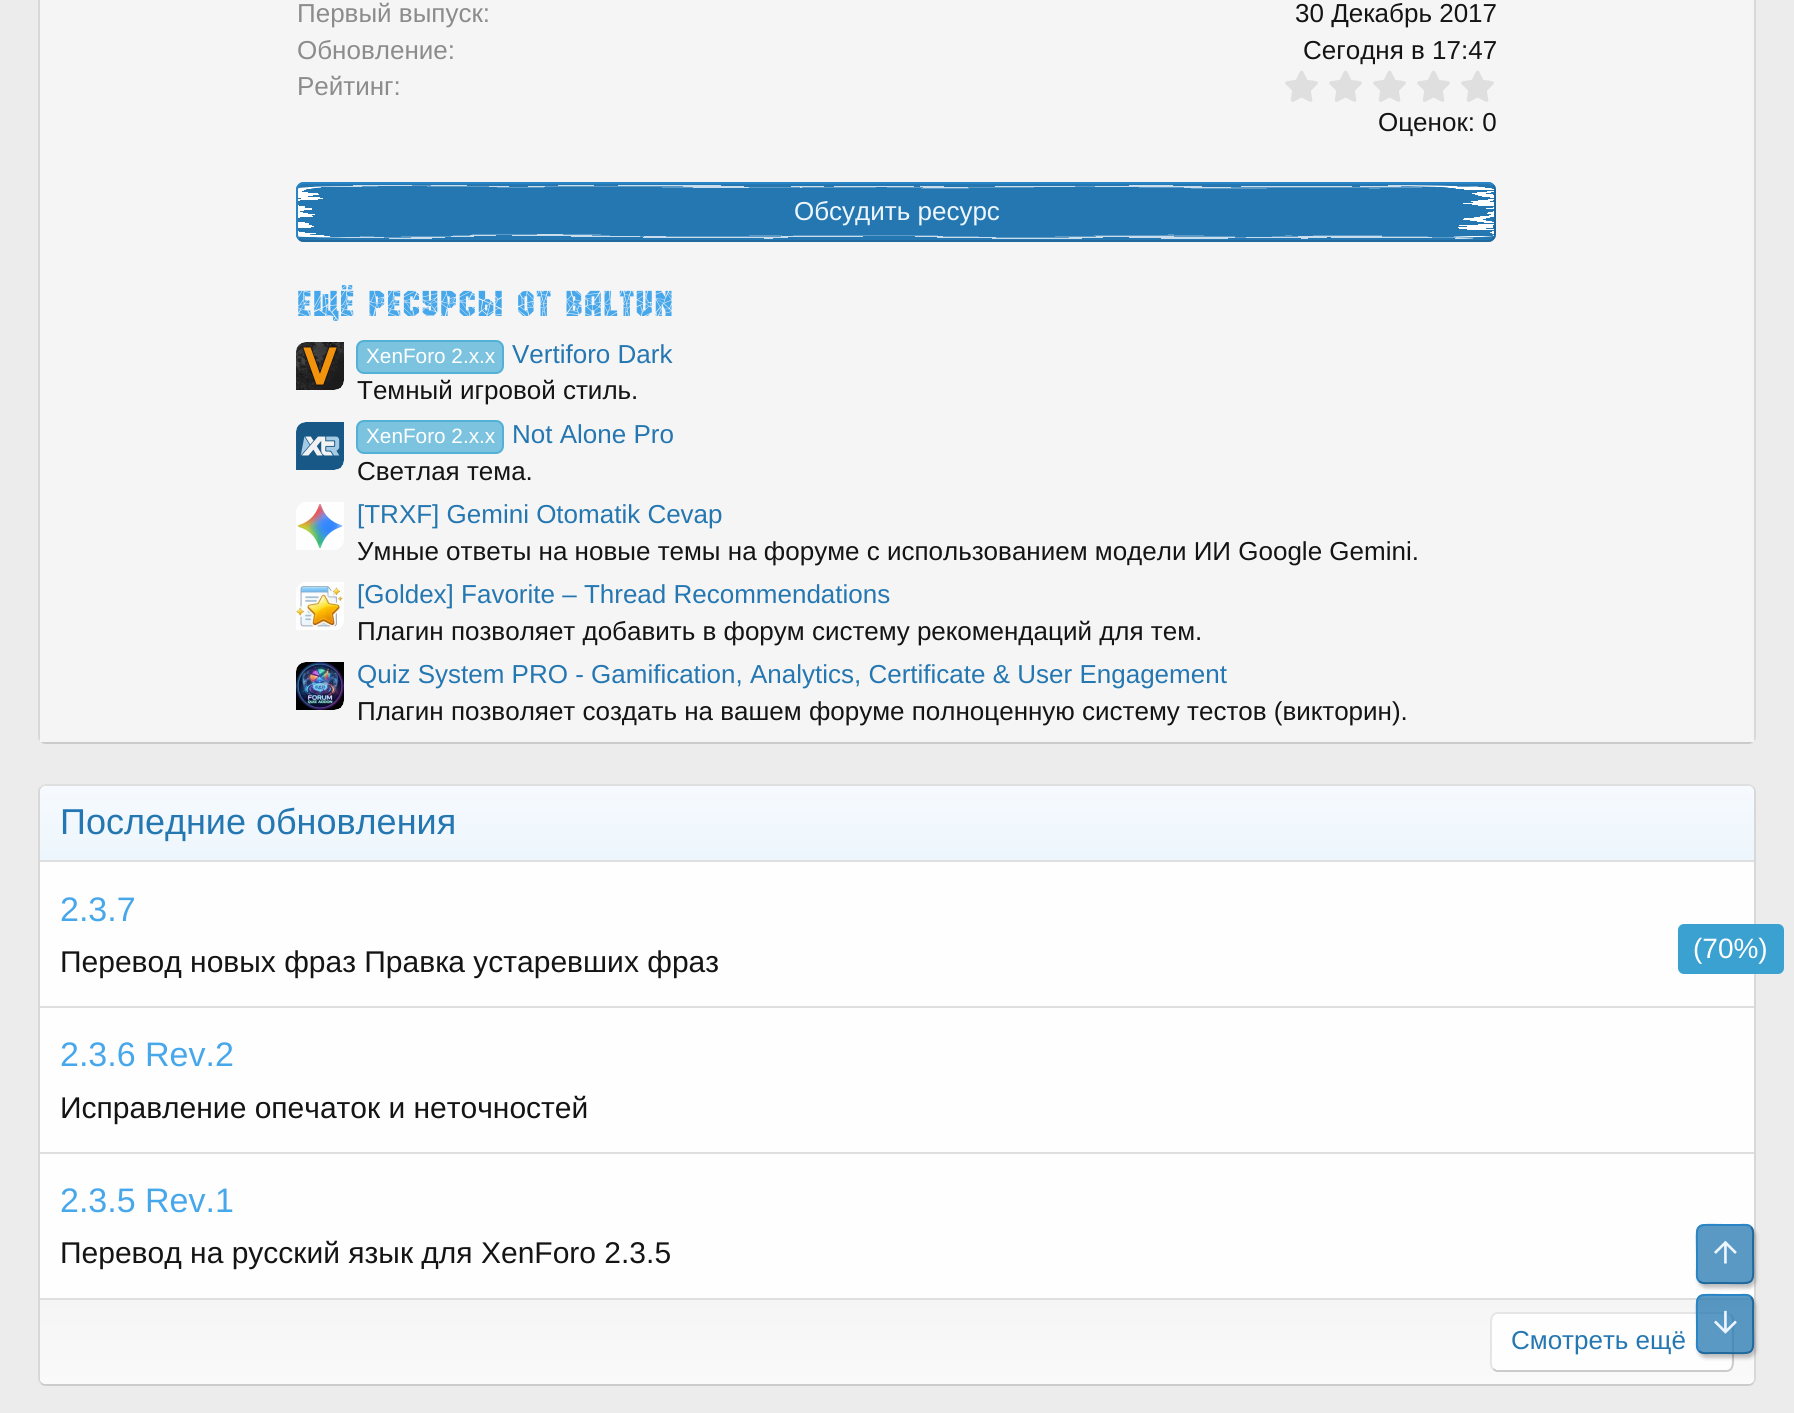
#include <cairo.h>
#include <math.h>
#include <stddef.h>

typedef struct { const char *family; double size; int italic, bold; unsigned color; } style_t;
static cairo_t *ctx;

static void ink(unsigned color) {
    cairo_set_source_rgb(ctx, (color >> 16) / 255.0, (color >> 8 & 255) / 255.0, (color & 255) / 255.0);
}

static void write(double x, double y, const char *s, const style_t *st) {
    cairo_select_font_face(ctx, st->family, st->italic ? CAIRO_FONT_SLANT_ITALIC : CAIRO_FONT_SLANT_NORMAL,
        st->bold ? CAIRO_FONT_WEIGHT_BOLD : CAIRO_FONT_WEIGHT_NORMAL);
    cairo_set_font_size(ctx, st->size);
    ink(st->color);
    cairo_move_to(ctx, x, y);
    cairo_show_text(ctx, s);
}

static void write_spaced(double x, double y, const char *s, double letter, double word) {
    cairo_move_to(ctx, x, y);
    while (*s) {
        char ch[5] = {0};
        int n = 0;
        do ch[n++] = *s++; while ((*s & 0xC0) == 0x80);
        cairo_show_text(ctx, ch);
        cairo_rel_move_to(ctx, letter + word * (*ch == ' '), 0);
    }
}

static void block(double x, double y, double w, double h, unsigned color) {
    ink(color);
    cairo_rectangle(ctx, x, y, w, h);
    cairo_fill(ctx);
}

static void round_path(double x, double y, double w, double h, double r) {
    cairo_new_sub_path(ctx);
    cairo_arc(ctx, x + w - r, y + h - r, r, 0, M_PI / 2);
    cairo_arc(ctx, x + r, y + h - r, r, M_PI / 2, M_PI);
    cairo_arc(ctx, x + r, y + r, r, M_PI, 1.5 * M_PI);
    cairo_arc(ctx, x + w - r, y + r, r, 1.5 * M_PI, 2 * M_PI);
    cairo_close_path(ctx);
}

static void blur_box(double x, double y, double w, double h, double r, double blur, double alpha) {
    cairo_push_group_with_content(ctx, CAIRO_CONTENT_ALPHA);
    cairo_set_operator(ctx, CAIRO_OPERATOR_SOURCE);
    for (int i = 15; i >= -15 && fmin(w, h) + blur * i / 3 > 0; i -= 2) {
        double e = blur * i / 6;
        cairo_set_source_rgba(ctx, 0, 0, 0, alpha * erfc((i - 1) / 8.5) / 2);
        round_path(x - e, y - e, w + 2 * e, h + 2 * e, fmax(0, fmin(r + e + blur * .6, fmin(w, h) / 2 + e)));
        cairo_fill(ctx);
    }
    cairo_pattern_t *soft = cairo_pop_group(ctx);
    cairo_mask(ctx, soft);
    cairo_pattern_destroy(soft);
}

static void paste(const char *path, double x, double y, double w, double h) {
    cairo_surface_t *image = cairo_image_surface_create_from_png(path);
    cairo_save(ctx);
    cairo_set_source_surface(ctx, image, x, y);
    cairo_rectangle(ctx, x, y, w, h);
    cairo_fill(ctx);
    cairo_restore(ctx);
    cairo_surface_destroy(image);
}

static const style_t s1 = {"Liberation Sans", 26, 0, 0, 0x8c8c8c};
static const style_t s2 = {"Liberation Sans", 26, 0, 0, 0x141414};
static const style_t s3 = {"Liberation Sans", 26, 0, 0, 0xedf6fd};
static const style_t s4 = {"Liberation Sans", 20.75, 0, 0, 0xffffff};
static const style_t s5 = {"Liberation Sans", 26, 0, 0, 0x2577b1};
static const style_t s6 = {"Liberation Sans", 36, 0, 0, 0x2577b1};
static const style_t s7 = {"Liberation Sans", 34, 0, 0, 0x47a7eb};
static const style_t s8 = {"Liberation Sans", 30, 0, 0, 0x141414};
static const style_t s9 = {"Liberation Sans", 28, 0, 0, 0xffffff};

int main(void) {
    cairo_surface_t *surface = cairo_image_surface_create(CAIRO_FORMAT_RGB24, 1794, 1413);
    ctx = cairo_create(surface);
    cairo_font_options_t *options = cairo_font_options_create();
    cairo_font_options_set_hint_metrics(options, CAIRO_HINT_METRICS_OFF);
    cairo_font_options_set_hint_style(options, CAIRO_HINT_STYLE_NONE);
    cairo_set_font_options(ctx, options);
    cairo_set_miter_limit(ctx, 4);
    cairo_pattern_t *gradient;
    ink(0xececec);
    cairo_paint(ctx);
    cairo_new_path(ctx);
    cairo_move_to(ctx, 1753, -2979);
    cairo_curve_to(ctx, 1754.5, -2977.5, 1755, -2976, 1755, -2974);
    cairo_line_to(ctx, 1755, 736);
    cairo_curve_to(ctx, 1755, 738, 1754.5, 739.5, 1753, 741);
    ink(0xd8d8d8);
    cairo_stroke(ctx);
    cairo_new_path(ctx);
    cairo_move_to(ctx, 1753, 741);
    cairo_curve_to(ctx, 1751.5, 742.5, 1750, 743, 1748, 743);
    cairo_line_to(ctx, 46, 743);
    cairo_curve_to(ctx, 44, 743, 42.5, 742.5, 41, 741);
    ink(0xcbcbcb);
    cairo_stroke(ctx);
    cairo_new_path(ctx);
    cairo_move_to(ctx, 41, 741);
    cairo_curve_to(ctx, 39.5, 739.5, 39, 738, 39, 736);
    cairo_line_to(ctx, 39, -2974);
    cairo_curve_to(ctx, 39, -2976, 39.5, -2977.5, 41, -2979);
    ink(0xd8d8d8);
    cairo_stroke(ctx);
    block(40, 0, 1714, 742, 0xf5f5f5);
    write(297, 22, "Первый выпуск:", &s1);
    write(1295, 22, "30 Декабрь 2017", &s2);
    write(297, 59, "Обновление:", &s1);
    write(1303, 59, "Сегодня в 17:47", &s2);
    write(297, 95, "Рейтинг:", &s1);
    paste("pic1.png", 1285, 70, 33, 32);
    paste("pic1.png", 1329, 70, 33, 32);
    paste("pic1.png", 1373, 70, 33, 32);
    paste("pic1.png", 1417, 70, 33, 32);
    paste("pic1.png", 1461, 70, 33, 32);
    write(1378, 131, "Оценок: 0", &s2);
    ink(0x2577b1);
    round_path(296, 182, 1200, 60, 8);
    cairo_fill(ctx);
    paste("pic2.png", 296, 185, 1200, 54);
    cairo_new_path(ctx);
    cairo_move_to(ctx, 1493, 185);
    cairo_curve_to(ctx, 1494.5, 186.5, 1495, 188, 1495, 190);
    cairo_line_to(ctx, 1495, 234);
    cairo_curve_to(ctx, 1495, 236, 1494.5, 237.5, 1493, 239);
    cairo_curve_to(ctx, 1491.5, 240.5, 1490, 241, 1488, 241);
    cairo_line_to(ctx, 304, 241);
    cairo_curve_to(ctx, 302, 241, 300.5, 240.5, 299, 239);
    ink(0x21699c);
    cairo_stroke(ctx);
    cairo_new_path(ctx);
    cairo_move_to(ctx, 299, 239);
    cairo_curve_to(ctx, 297.5, 237.5, 297, 236, 297, 234);
    cairo_line_to(ctx, 297, 190);
    cairo_curve_to(ctx, 297, 188, 297.5, 186.5, 299, 185);
    cairo_curve_to(ctx, 300.5, 183.5, 302, 183, 304, 183);
    cairo_line_to(ctx, 1488, 183);
    cairo_curve_to(ctx, 1490, 183, 1491.5, 183.5, 1493, 185);
    ink(0x2985c6);
    cairo_stroke(ctx);
    write(794, 220, "Обсудить ресурс", &s3);
    cairo_select_font_face(ctx, "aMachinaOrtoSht", CAIRO_FONT_SLANT_NORMAL, CAIRO_FONT_WEIGHT_NORMAL);
    cairo_set_font_size(ctx, 34);
    ink(0x47a7eb);
    write_spaced(297, 316, "Ещё ресурсы от baltun", 1.4, 0);
    ink(0xfefefe);
    cairo_new_path(ctx);
    cairo_move_to(ctx, 306, 342);
    cairo_line_to(ctx, 344, 342);
    cairo_line_to(ctx, 344, 380);
    cairo_curve_to(ctx, 344, 385.5, 339.5, 390, 334, 390);
    cairo_line_to(ctx, 296, 390);
    cairo_line_to(ctx, 296, 352);
    cairo_curve_to(ctx, 296, 346.5, 300.5, 342, 306, 342);
    cairo_close_path(ctx);
    cairo_fill(ctx);
    paste("pic3.png", 296, 342, 48, 48);
    ink(0x7cc3e0);
    round_path(357, 341, 146, 32, 7);
    cairo_fill_preserve(ctx);
    ink(0x53b0d6);
    cairo_stroke(ctx);
    write(366, 363, "XenForo 2.х.х", &s4);
    write(512, 363, "Vertiforo Dark", &s5);
    write(357, 399, "Темный игровой стиль.", &s2);
    ink(0xfefefe);
    cairo_new_path(ctx);
    cairo_move_to(ctx, 306, 422);
    cairo_line_to(ctx, 344, 422);
    cairo_line_to(ctx, 344, 460);
    cairo_curve_to(ctx, 344, 465.5, 339.5, 470, 334, 470);
    cairo_line_to(ctx, 296, 470);
    cairo_line_to(ctx, 296, 432);
    cairo_curve_to(ctx, 296, 426.5, 300.5, 422, 306, 422);
    cairo_close_path(ctx);
    cairo_fill(ctx);
    paste("pic4.png", 296, 422, 48, 48);
    ink(0x7cc3e0);
    round_path(357, 421, 146, 32, 7);
    cairo_fill_preserve(ctx);
    ink(0x53b0d6);
    cairo_stroke(ctx);
    write(366, 443, "XenForo 2.х.х", &s4);
    write(512, 443, "Not Alone Pro", &s5);
    write(357, 480, "Светлая тема.", &s2);
    ink(0xfefefe);
    cairo_new_path(ctx);
    cairo_move_to(ctx, 306, 502);
    cairo_line_to(ctx, 344, 502);
    cairo_line_to(ctx, 344, 540);
    cairo_curve_to(ctx, 344, 545.5, 339.5, 550, 334, 550);
    cairo_line_to(ctx, 296, 550);
    cairo_line_to(ctx, 296, 512);
    cairo_curve_to(ctx, 296, 506.5, 300.5, 502, 306, 502);
    cairo_close_path(ctx);
    cairo_fill(ctx);
    paste("pic5.png", 297, 503, 46, 46);
    write(357, 523, "[TRXF] Gemini Otomatik Cevap", &s5);
    write(357, 560, "Умные ответы на новые темы на форуме с использованием модели ИИ Google Gemini.", &s2);
    ink(0xfefefe);
    cairo_new_path(ctx);
    cairo_move_to(ctx, 306, 582);
    cairo_line_to(ctx, 344, 582);
    cairo_line_to(ctx, 344, 620);
    cairo_curve_to(ctx, 344, 625.5, 339.5, 630, 334, 630);
    cairo_line_to(ctx, 296, 630);
    cairo_line_to(ctx, 296, 592);
    cairo_curve_to(ctx, 296, 586.5, 300.5, 582, 306, 582);
    cairo_close_path(ctx);
    cairo_fill(ctx);
    paste("pic6.png", 296, 586, 48, 44);
    write(357, 603, "[Goldex] Favorite – Thread Recommendations", &s5);
    write(357, 640, "Плагин позволяет добавить в форум систему рекомендаций для тем.", &s2);
    ink(0xfefefe);
    cairo_new_path(ctx);
    cairo_move_to(ctx, 306, 662);
    cairo_line_to(ctx, 344, 662);
    cairo_line_to(ctx, 344, 700);
    cairo_curve_to(ctx, 344, 705.5, 339.5, 710, 334, 710);
    cairo_line_to(ctx, 296, 710);
    cairo_line_to(ctx, 296, 672);
    cairo_curve_to(ctx, 296, 666.5, 300.5, 662, 306, 662);
    cairo_close_path(ctx);
    cairo_fill(ctx);
    paste("pic7.png", 296, 662, 48, 48);
    write(357, 683, "Quiz System PRO - Gamification, Analytics, Certificate & User Engagement", &s5);
    write(357, 720, "Плагин позволяет создать на вашем форуме полноценную систему тестов (викторин).", &s2);
    ink(0xfefefe);
    round_path(38, 784, 1718, 602, 8);
    cairo_fill(ctx);
    cairo_new_path(ctx);
    cairo_move_to(ctx, 41, 787);
    cairo_curve_to(ctx, 42.5, 785.5, 44, 785, 46, 785);
    cairo_line_to(ctx, 1748, 785);
    cairo_curve_to(ctx, 1750, 785, 1751.5, 785.5, 1753, 787);
    ink(0xdfdfdf);
    cairo_stroke(ctx);
    cairo_new_path(ctx);
    cairo_move_to(ctx, 1753, 787);
    cairo_curve_to(ctx, 1754.5, 788.5, 1755, 790, 1755, 792);
    cairo_line_to(ctx, 1755, 1378);
    cairo_curve_to(ctx, 1755, 1380, 1754.5, 1381.5, 1753, 1383);
    ink(0xd8d8d8);
    cairo_stroke(ctx);
    cairo_new_path(ctx);
    cairo_move_to(ctx, 1753, 1383);
    cairo_curve_to(ctx, 1751.5, 1384.5, 1750, 1385, 1748, 1385);
    cairo_line_to(ctx, 46, 1385);
    cairo_curve_to(ctx, 44, 1385, 42.5, 1384.5, 41, 1383);
    ink(0xcbcbcb);
    cairo_stroke(ctx);
    cairo_new_path(ctx);
    cairo_move_to(ctx, 41, 1383);
    cairo_curve_to(ctx, 39.5, 1381.5, 39, 1380, 39, 1378);
    cairo_line_to(ctx, 39, 792);
    cairo_curve_to(ctx, 39, 790, 39.5, 788.5, 41, 787);
    ink(0xd8d8d8);
    cairo_stroke(ctx);
    gradient = cairo_pattern_create_linear(897, 860, 897, 786);
    cairo_pattern_add_color_stop_rgba(gradient, 0, 0.929, 0.965, 0.992, 1);
    cairo_pattern_add_color_stop_rgba(gradient, 1, 0.965, 0.98, 0.996, 1);
    cairo_set_source(ctx, gradient);
    cairo_pattern_destroy(gradient);
    cairo_new_path(ctx);
    cairo_move_to(ctx, 46, 786);
    cairo_line_to(ctx, 1748, 786);
    cairo_curve_to(ctx, 1751.5, 786, 1754, 788.5, 1754, 792);
    cairo_line_to(ctx, 1754, 860);
    cairo_line_to(ctx, 40, 860);
    cairo_line_to(ctx, 40, 792);
    cairo_curve_to(ctx, 40, 788.5, 42.5, 786, 46, 786);
    cairo_close_path(ctx);
    cairo_fill(ctx);
    block(40, 860, 1714, 2, 0xdfdfdf);
    write(60, 834, "Последние обновления", &s6);
    write(60, 921, "2.3.7", &s7);
    write(60, 972, "Перевод новых фраз Правка устаревших фраз", &s8);
    block(40, 1006, 1714, 2, 0xdfdfdf);
    write(60, 1066, "2.3.6 Rev.2", &s7);
    write(60, 1118, "Исправление опечаток и неточностей", &s8);
    block(40, 1152, 1714, 2, 0xdfdfdf);
    write(60, 1212, "2.3.5 Rev.1", &s7);
    write(60, 1263, "Перевод на русский язык для XenForo 2.3.5", &s8);
    gradient = cairo_pattern_create_linear(897, 1300, 897, 1384);
    cairo_pattern_add_color_stop_rgba(gradient, 0, 0.961, 0.961, 0.961, 1);
    cairo_pattern_add_color_stop_rgba(gradient, 1, 0.98, 0.98, 0.98, 1);
    cairo_set_source(ctx, gradient);
    cairo_pattern_destroy(gradient);
    cairo_new_path(ctx);
    cairo_move_to(ctx, 40, 1300);
    cairo_line_to(ctx, 1754, 1300);
    cairo_line_to(ctx, 1754, 1378);
    cairo_curve_to(ctx, 1754, 1381.5, 1751.5, 1384, 1748, 1384);
    cairo_line_to(ctx, 46, 1384);
    cairo_curve_to(ctx, 42.5, 1384, 40, 1381.5, 40, 1378);
    cairo_close_path(ctx);
    cairo_fill(ctx);
    block(40, 1298, 1714, 2, 0xdfdfdf);
    ink(0xfefefe);
    round_path(1490, 1312, 244, 60, 8);
    cairo_fill(ctx);
    cairo_new_path(ctx);
    cairo_move_to(ctx, 1731, 1315);
    cairo_curve_to(ctx, 1734, 1318, 1733, 1323.5, 1733, 1327.5);
    cairo_line_to(ctx, 1733, 1356.5);
    cairo_curve_to(ctx, 1733, 1362, 1734, 1371, 1726, 1371);
    cairo_line_to(ctx, 1496.5, 1371);
    cairo_line_to(ctx, 1493, 1369);
    ink(0xcbcbcb);
    cairo_stroke(ctx);
    cairo_new_path(ctx);
    cairo_move_to(ctx, 1493, 1369);
    cairo_curve_to(ctx, 1490, 1366, 1491, 1360.5, 1491, 1356.5);
    cairo_line_to(ctx, 1491, 1327.5);
    cairo_curve_to(ctx, 1491, 1322, 1490, 1313, 1498, 1313);
    cairo_line_to(ctx, 1727.5, 1313);
    cairo_line_to(ctx, 1731, 1315);
    ink(0xe5e5e5);
    cairo_stroke(ctx);
    write(1511, 1349, "Смотреть ещё", &s5);
    cairo_set_source_rgba(ctx, 0.212, 0.624, 0.812, 0.98);
    round_path(1678, 924, 106, 50, 6);
    cairo_fill(ctx);
    write(1693, 958, "(70%)", &s9);
    cairo_save(ctx);
    cairo_set_fill_rule(ctx, CAIRO_FILL_RULE_EVEN_ODD);
    cairo_new_path(ctx);
    cairo_move_to(ctx, 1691, 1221);
    cairo_line_to(ctx, 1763, 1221);
    cairo_line_to(ctx, 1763, 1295);
    cairo_line_to(ctx, 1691, 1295);
    cairo_close_path(ctx);
    cairo_move_to(ctx, 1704, 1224);
    cairo_line_to(ctx, 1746, 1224);
    cairo_curve_to(ctx, 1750.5, 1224, 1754, 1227.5, 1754, 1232);
    cairo_line_to(ctx, 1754, 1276);
    cairo_curve_to(ctx, 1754, 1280.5, 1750.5, 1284, 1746, 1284);
    cairo_line_to(ctx, 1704, 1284);
    cairo_curve_to(ctx, 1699.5, 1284, 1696, 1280.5, 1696, 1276);
    cairo_line_to(ctx, 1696, 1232);
    cairo_curve_to(ctx, 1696, 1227.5, 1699.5, 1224, 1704, 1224);
    cairo_close_path(ctx);
    cairo_clip(ctx);
    ink(0x000000);
    blur_box(1698, 1228, 58, 60, 8, 2, 0.25);
    cairo_restore(ctx);
    cairo_set_source_rgba(ctx, 0.145, 0.467, 0.694, 0.75);
    round_path(1696, 1224, 58, 60, 8);
    cairo_fill(ctx);
    cairo_new_path(ctx);
    cairo_move_to(ctx, 1751, 1227);
    cairo_curve_to(ctx, 1754, 1230, 1753, 1235.5, 1753, 1239.5);
    cairo_line_to(ctx, 1753, 1254);
    cairo_curve_to(ctx, 1753, 1287, 1757.5, 1283, 1725, 1283);
    cairo_line_to(ctx, 1711, 1283);
    cairo_curve_to(ctx, 1707, 1283, 1702, 1284, 1699, 1281);
    ink(0x21699c);
    cairo_stroke(ctx);
    cairo_new_path(ctx);
    cairo_move_to(ctx, 1699, 1281);
    cairo_curve_to(ctx, 1696, 1278, 1697, 1272.5, 1697, 1268.5);
    cairo_line_to(ctx, 1697, 1254);
    cairo_curve_to(ctx, 1697, 1221, 1692.5, 1225, 1725, 1225);
    cairo_line_to(ctx, 1739, 1225);
    cairo_curve_to(ctx, 1743, 1225, 1748, 1224, 1751, 1227);
    ink(0x2985c6);
    cairo_stroke(ctx);
    paste("pic8.png", 1714, 1240, 23, 24);
    cairo_save(ctx);
    cairo_set_fill_rule(ctx, CAIRO_FILL_RULE_EVEN_ODD);
    cairo_new_path(ctx);
    cairo_move_to(ctx, 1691, 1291);
    cairo_line_to(ctx, 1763, 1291);
    cairo_line_to(ctx, 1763, 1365);
    cairo_line_to(ctx, 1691, 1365);
    cairo_close_path(ctx);
    cairo_move_to(ctx, 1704, 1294);
    cairo_line_to(ctx, 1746, 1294);
    cairo_curve_to(ctx, 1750.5, 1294, 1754, 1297.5, 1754, 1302);
    cairo_line_to(ctx, 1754, 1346);
    cairo_curve_to(ctx, 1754, 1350.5, 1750.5, 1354, 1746, 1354);
    cairo_line_to(ctx, 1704, 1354);
    cairo_curve_to(ctx, 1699.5, 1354, 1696, 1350.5, 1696, 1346);
    cairo_line_to(ctx, 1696, 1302);
    cairo_curve_to(ctx, 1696, 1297.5, 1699.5, 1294, 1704, 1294);
    cairo_close_path(ctx);
    cairo_clip(ctx);
    ink(0x000000);
    blur_box(1698, 1298, 58, 60, 8, 2, 0.25);
    cairo_restore(ctx);
    cairo_set_source_rgba(ctx, 0.145, 0.467, 0.694, 0.75);
    round_path(1696, 1294, 58, 60, 8);
    cairo_fill(ctx);
    cairo_new_path(ctx);
    cairo_move_to(ctx, 1751, 1297);
    cairo_curve_to(ctx, 1754, 1300, 1753, 1305.5, 1753, 1309.5);
    cairo_line_to(ctx, 1753, 1324);
    cairo_curve_to(ctx, 1753, 1357, 1757.5, 1353, 1725, 1353);
    cairo_line_to(ctx, 1711, 1353);
    cairo_curve_to(ctx, 1707, 1353, 1702, 1354, 1699, 1351);
    ink(0x21699c);
    cairo_stroke(ctx);
    cairo_new_path(ctx);
    cairo_move_to(ctx, 1699, 1351);
    cairo_curve_to(ctx, 1696, 1348, 1697, 1342.5, 1697, 1338.5);
    cairo_line_to(ctx, 1697, 1324);
    cairo_curve_to(ctx, 1697, 1291, 1692.5, 1295, 1725, 1295);
    cairo_line_to(ctx, 1739, 1295);
    cairo_curve_to(ctx, 1743, 1295, 1748, 1294, 1751, 1297);
    ink(0x2985c6);
    cairo_stroke(ctx);
    paste("pic9.png", 1714, 1310, 23, 24);
    cairo_surface_write_to_png(surface, "screenshot.png");
    cairo_font_options_destroy(options);
    cairo_destroy(ctx);
    cairo_surface_destroy(surface);
    return 0;
}
